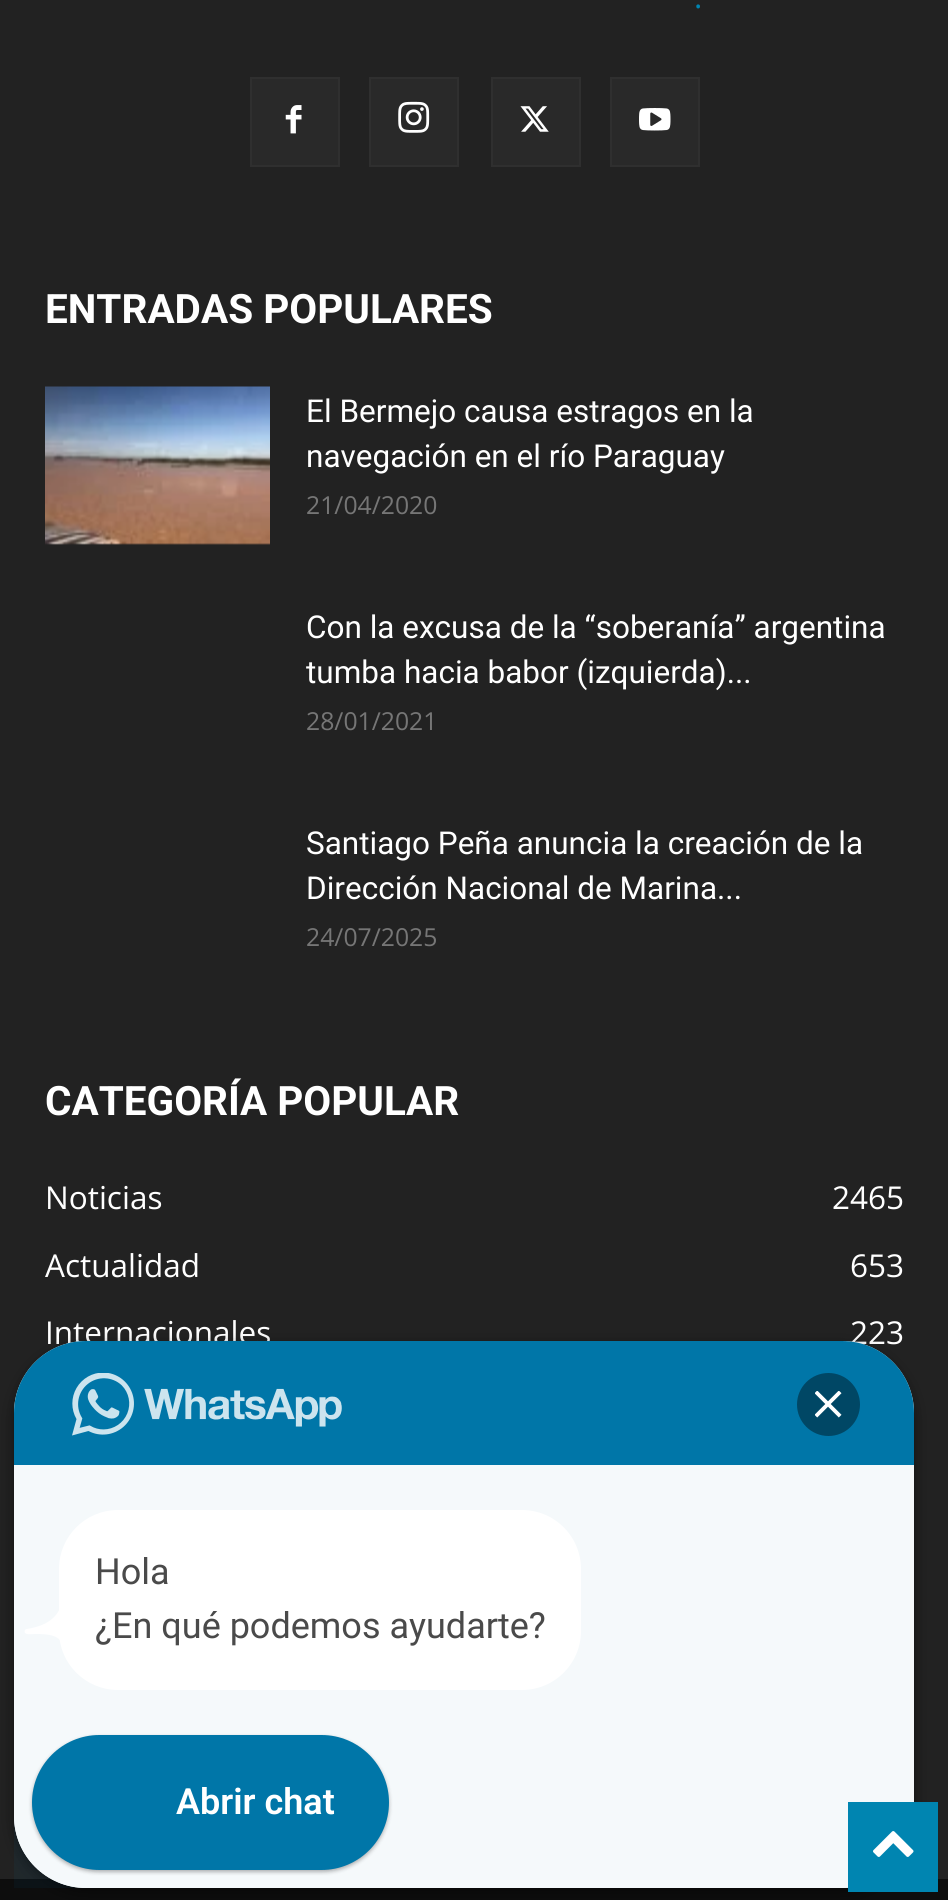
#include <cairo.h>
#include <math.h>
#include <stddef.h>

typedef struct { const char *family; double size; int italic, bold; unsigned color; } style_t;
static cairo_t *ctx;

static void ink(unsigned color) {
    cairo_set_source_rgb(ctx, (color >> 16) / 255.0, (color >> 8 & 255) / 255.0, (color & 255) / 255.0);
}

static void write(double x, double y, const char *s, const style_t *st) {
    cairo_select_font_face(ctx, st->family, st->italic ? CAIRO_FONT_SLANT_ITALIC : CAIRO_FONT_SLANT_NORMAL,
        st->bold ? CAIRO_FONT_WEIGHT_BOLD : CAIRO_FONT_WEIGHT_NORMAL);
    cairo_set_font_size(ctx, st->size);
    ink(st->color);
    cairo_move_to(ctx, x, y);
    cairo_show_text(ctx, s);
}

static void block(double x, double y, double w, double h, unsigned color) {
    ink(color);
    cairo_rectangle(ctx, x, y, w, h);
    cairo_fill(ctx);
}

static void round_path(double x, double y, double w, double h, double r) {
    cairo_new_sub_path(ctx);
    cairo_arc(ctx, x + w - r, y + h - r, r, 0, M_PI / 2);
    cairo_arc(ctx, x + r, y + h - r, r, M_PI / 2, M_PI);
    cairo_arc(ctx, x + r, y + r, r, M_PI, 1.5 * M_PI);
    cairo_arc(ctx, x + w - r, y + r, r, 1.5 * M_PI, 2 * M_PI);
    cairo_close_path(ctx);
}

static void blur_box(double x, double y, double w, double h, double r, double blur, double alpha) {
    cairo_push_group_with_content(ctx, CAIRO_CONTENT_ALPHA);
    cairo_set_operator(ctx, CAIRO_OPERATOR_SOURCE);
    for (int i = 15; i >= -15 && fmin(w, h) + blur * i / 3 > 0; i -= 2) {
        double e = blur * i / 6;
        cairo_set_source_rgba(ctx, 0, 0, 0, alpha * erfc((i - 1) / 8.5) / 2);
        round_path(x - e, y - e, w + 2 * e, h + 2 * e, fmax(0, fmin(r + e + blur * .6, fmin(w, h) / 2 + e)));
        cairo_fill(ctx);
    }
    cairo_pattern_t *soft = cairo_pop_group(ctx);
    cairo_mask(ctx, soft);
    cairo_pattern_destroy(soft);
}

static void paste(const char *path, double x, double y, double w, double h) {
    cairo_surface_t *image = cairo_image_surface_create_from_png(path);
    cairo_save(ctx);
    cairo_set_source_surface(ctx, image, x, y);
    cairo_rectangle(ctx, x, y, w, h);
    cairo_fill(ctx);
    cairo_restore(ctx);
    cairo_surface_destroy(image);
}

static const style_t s1 = {"Open Sans", 31.5, 0, 0, 0x0085b1};
static const style_t s2 = {"Roboto", 40.5, 0, 1, 0xffffff};
static const style_t s3 = {"Roboto", 31.5, 0, 0, 0xffffff};
static const style_t s4 = {"Open Sans", 24.75, 0, 0, 0x767676};
static const style_t s5 = {"Open Sans", 31.5, 0, 0, 0xffffff};
static const style_t s6 = {"Roboto", 36, 0, 0, 0x4a4a4a};
static const style_t s7 = {"Roboto SemiBold", 36, 0, 0, 0xffffff};

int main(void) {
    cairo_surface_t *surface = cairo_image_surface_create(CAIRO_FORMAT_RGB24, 948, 1900);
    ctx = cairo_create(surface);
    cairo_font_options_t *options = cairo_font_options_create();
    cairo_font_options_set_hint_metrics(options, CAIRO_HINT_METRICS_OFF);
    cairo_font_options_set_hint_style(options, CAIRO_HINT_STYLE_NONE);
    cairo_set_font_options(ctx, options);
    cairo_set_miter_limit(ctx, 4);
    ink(0x0d0d0d);
    cairo_paint(ctx);
    block(0, 0, 948, 1879, 0x222222);
    write(694, 8, ".", &s1);
    block(252, 79, 86, 86, 0x292929);
    paste("pic1.png", 285, 105, 17, 29);
    cairo_rectangle(ctx, 251, 78, 88, 88);
    ink(0x2f2f2f);
    cairo_stroke(ctx);
    block(371, 79, 86, 86, 0x292929);
    paste("pic2.png", 398, 101, 32, 32);
    cairo_rectangle(ctx, 370, 78, 88, 88);
    ink(0x2f2f2f);
    cairo_stroke(ctx);
    block(493, 79, 86, 86, 0x292929);
    paste("pic3.png", 520, 106, 29, 26);
    cairo_rectangle(ctx, 492, 78, 88, 88);
    ink(0x2f2f2f);
    cairo_stroke(ctx);
    block(612, 79, 86, 86, 0x292929);
    paste("pic4.png", 639, 108, 32, 23);
    cairo_rectangle(ctx, 611, 78, 88, 88);
    ink(0x2f2f2f);
    cairo_stroke(ctx);
    write(45, 323, "ENTRADAS POPULARES", &s2);
    paste("pic5.png", 45, 386, 225, 159);
    write(306, 422, "El Bermejo causa estragos en la", &s3);
    write(306, 467, "navegación en el río Paraguay", &s3);
    write(306, 514, "21/04/2020", &s4);
    write(306, 638, "Con la excusa de la “soberanía” argentina", &s3);
    write(306, 683, "tumba hacia babor (izquierda)...", &s3);
    write(306, 730, "28/01/2021", &s4);
    write(306, 854, "Santiago Peña anuncia la creación de la", &s3);
    write(306, 899, "Dirección Nacional de Marina...", &s3);
    write(306, 946, "24/07/2025", &s4);
    write(45, 1115, "CATEGORÍA POPULAR", &s2);
    write(45, 1209, "Noticias", &s5);
    write(832, 1209, "2465", &s5);
    write(45, 1277, "Actualidad", &s5);
    write(850, 1277, "653", &s5);
    write(45, 1344, "Internacionales", &s5);
    write(850, 1344, "223", &s5);
    ink(0x000000);
    blur_box(14, 1346, 900, 546, 72, 7, 0.5);
    ink(0xffffff);
    round_path(14, 1341, 900, 547, 72);
    cairo_fill(ctx);
    ink(0x0076a8);
    cairo_new_path(ctx);
    cairo_move_to(ctx, 86, 1341);
    cairo_line_to(ctx, 842, 1341);
    cairo_curve_to(ctx, 882, 1341, 914, 1373, 914, 1413);
    cairo_line_to(ctx, 914, 1465);
    cairo_line_to(ctx, 14, 1465);
    cairo_line_to(ctx, 14, 1413);
    cairo_curve_to(ctx, 14, 1373, 46, 1341, 86, 1341);
    cairo_close_path(ctx);
    cairo_fill(ctx);
    cairo_set_source_rgba(ctx, 0, 0.463, 0.659, 0.04);
    cairo_rectangle(ctx, 14, 1465, 900, 423);
    cairo_fill(ctx);
    paste("pic6.png", 72, 1373, 270, 63);
    ink(0x004765);
    cairo_arc(ctx, 828.5, 1404.5, 31.5, 0, 2 * M_PI);
    cairo_fill(ctx);
    paste("pic7.png", 815, 1391, 27, 27);
    ink(0xffffff);
    round_path(59, 1510, 522, 180, 59);
    cairo_fill(ctx);
    write(95, 1584, "Hola", &s6);
    ink(0xffffff);
    cairo_new_path(ctx);
    cairo_move_to(ctx, 27, 1629);
    cairo_curve_to(ctx, 38, 1627, 63, 1622, 63, 1593);
    cairo_line_to(ctx, 63, 1649);
    cairo_curve_to(ctx, 63, 1634, 46, 1634, 35, 1634);
    cairo_curve_to(ctx, 33, 1634, 27, 1635, 25, 1633);
    cairo_curve_to(ctx, 24, 1631, 25, 1629, 27, 1629);
    cairo_close_path(ctx);
    cairo_fill(ctx);
    write(95, 1638, "¿En qué podemos ayudarte?", &s6);
    cairo_save(ctx);
    round_path(14, 1341, 900, 547, 72);
    cairo_clip(ctx);
    ink(0xffffff);
    cairo_new_path(ctx);
    cairo_move_to(ctx, 14, 1708);
    cairo_line_to(ctx, 905, 1708);
    cairo_line_to(ctx, 905, 1888);
    cairo_line_to(ctx, 86, 1888);
    cairo_curve_to(ctx, 46, 1888, 14, 1856, 14, 1816);
    cairo_close_path(ctx);
    cairo_fill(ctx);
    cairo_restore(ctx);
    cairo_set_source_rgba(ctx, 0, 0.463, 0.659, 0.04);
    cairo_rectangle(ctx, 14, 1708, 891, 180);
    cairo_fill(ctx);
    ink(0x000000);
    blur_box(32, 1737, 357, 135, 67.5, 2, 0.3);
    ink(0x0076a8);
    round_path(32, 1735, 357, 135, 67.5);
    cairo_fill(ctx);
    write(176, 1814, "Abrir chat", &s7);
    block(848, 1802, 90, 90, 0x0085b1);
    paste("pic8.png", 873, 1831, 41, 26);
    cairo_surface_write_to_png(surface, "screenshot.png");
    cairo_font_options_destroy(options);
    cairo_destroy(ctx);
    cairo_surface_destroy(surface);
    return 0;
}
